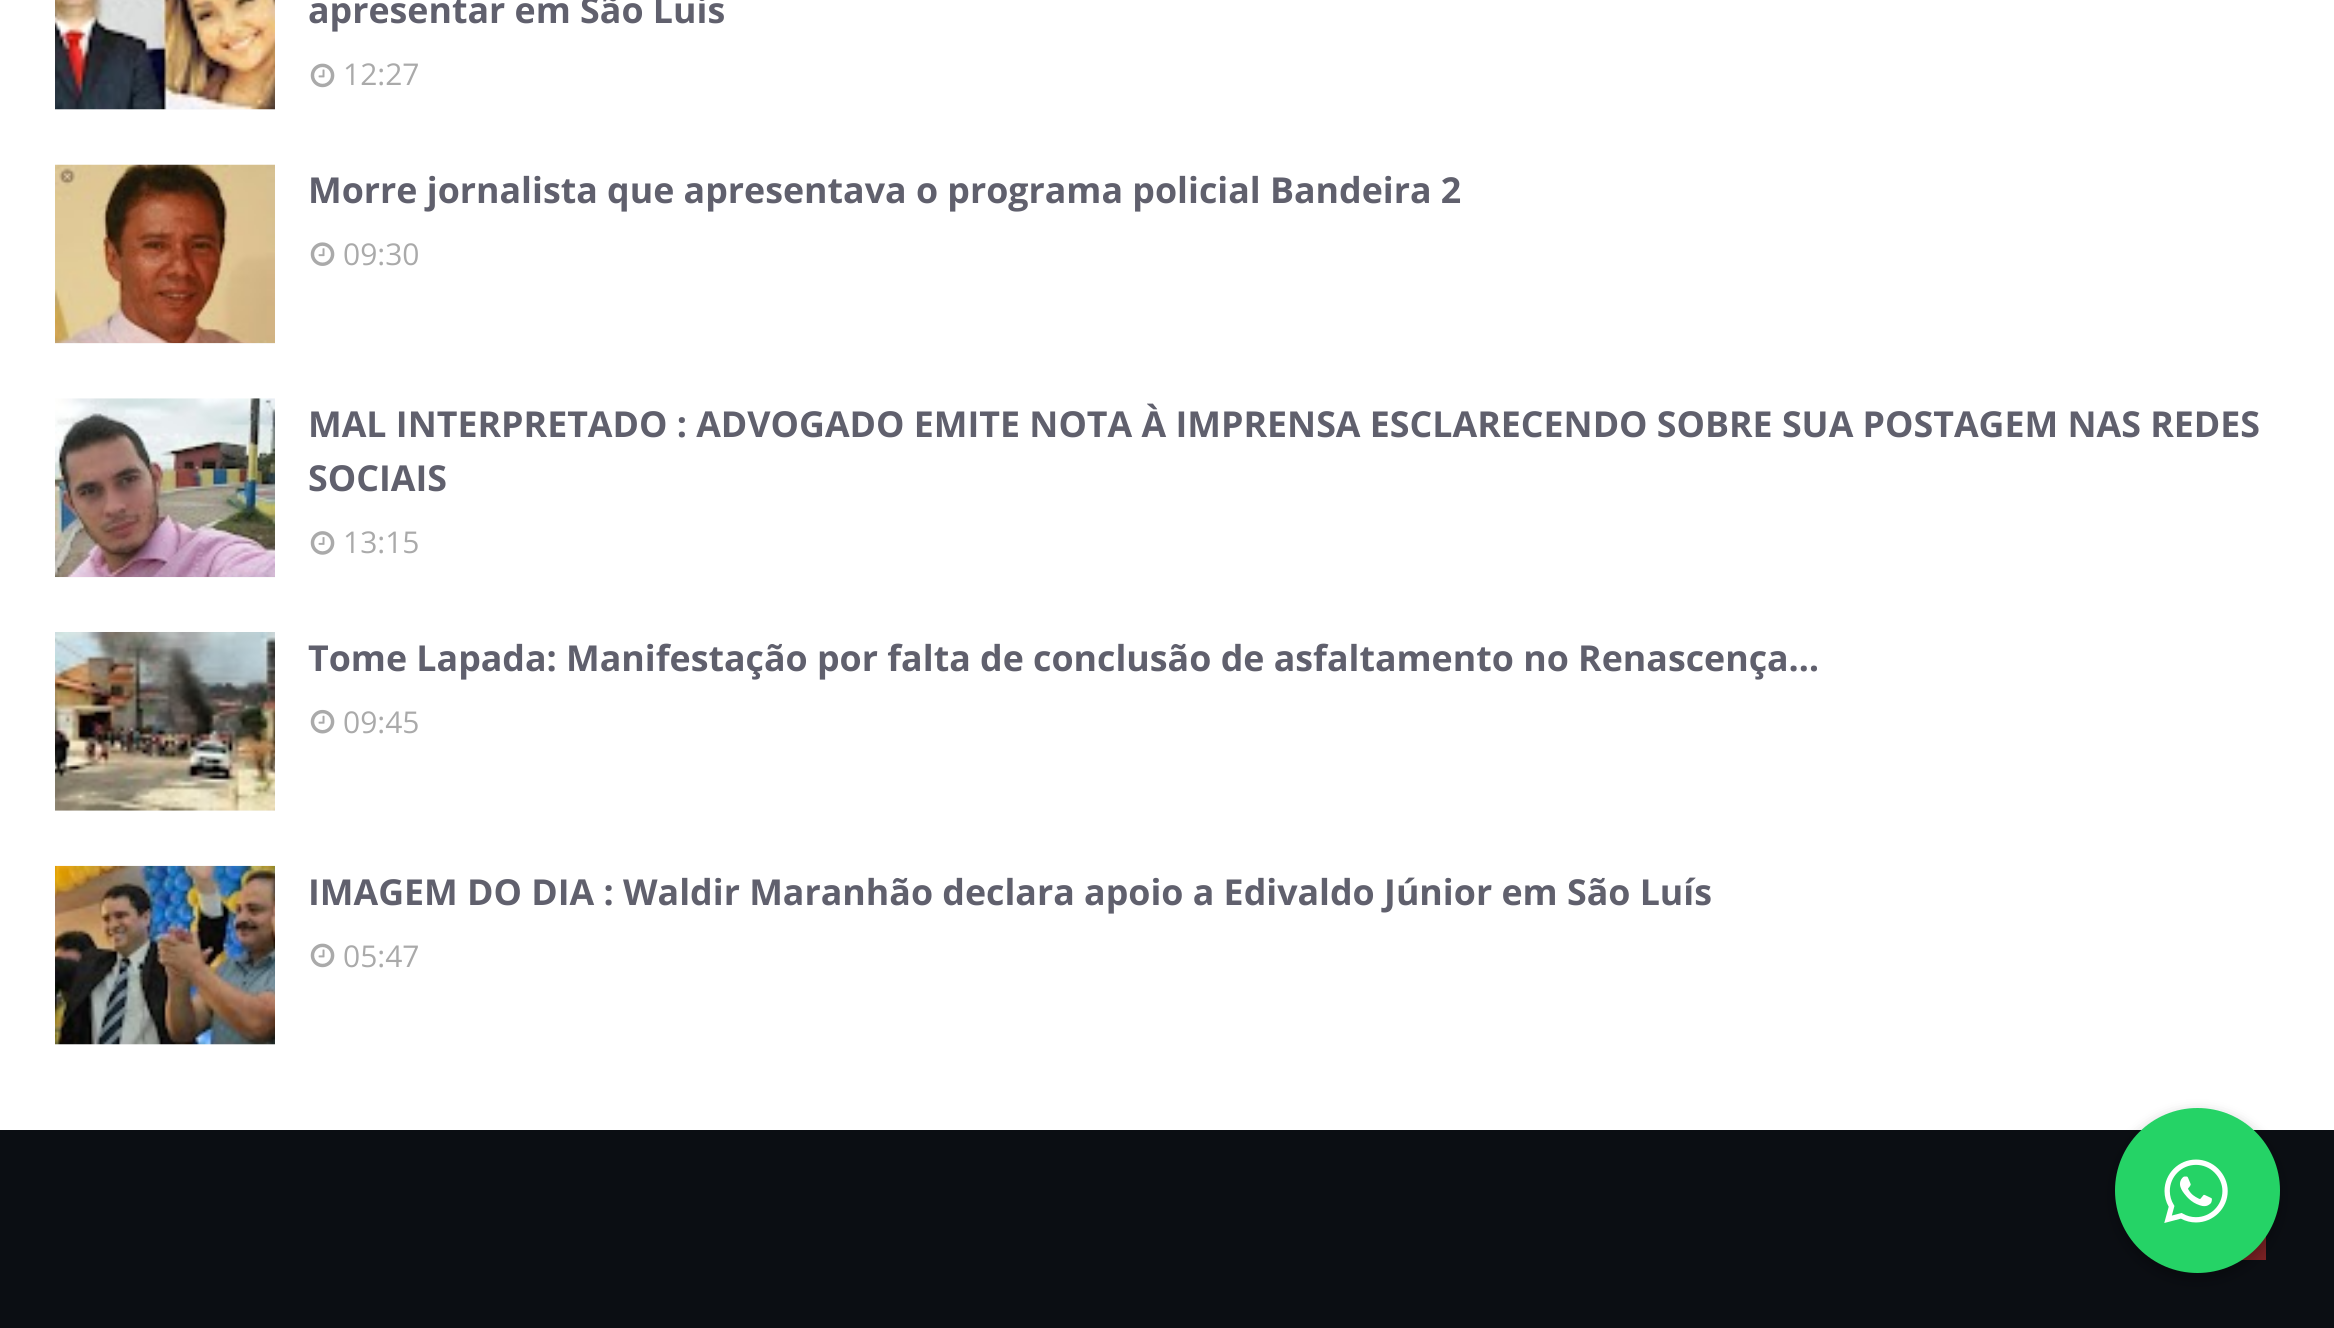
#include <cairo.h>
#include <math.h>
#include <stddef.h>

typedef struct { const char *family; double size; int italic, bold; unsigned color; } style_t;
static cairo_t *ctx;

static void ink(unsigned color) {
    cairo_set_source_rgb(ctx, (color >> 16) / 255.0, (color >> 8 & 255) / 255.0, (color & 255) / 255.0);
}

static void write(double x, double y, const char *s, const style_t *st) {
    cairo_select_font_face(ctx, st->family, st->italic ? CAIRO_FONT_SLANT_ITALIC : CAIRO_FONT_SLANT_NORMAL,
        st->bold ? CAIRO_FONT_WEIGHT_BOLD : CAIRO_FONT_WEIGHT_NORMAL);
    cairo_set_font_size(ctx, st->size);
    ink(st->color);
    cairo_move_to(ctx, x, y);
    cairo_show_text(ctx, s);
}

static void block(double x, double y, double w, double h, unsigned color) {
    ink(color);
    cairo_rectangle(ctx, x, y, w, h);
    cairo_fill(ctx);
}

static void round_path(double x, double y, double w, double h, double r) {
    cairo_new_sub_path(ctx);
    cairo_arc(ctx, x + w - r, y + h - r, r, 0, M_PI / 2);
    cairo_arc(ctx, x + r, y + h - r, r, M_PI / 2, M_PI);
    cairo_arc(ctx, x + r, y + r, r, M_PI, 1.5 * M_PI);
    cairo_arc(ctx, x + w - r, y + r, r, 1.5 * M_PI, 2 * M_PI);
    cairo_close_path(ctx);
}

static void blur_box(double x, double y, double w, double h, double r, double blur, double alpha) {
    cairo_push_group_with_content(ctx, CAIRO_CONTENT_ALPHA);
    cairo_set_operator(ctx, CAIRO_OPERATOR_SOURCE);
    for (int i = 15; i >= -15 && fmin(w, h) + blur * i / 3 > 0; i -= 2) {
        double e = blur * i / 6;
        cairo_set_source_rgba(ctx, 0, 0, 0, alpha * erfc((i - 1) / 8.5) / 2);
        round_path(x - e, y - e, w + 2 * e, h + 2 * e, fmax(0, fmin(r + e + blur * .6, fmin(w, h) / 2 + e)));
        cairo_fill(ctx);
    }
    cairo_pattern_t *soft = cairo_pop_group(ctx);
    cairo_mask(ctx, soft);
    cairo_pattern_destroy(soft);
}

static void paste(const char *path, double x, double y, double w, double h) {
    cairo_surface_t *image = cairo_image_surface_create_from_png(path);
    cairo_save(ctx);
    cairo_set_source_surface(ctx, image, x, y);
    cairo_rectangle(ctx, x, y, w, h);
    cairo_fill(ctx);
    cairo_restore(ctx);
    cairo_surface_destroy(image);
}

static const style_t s1 = {"Open Sans", 35.75, 0, 1, 0x60606d};
static const style_t s2 = {"Open Sans", 30, 0, 0, 0xaaaaaa};

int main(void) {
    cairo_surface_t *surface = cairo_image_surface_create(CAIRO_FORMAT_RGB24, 2334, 1328);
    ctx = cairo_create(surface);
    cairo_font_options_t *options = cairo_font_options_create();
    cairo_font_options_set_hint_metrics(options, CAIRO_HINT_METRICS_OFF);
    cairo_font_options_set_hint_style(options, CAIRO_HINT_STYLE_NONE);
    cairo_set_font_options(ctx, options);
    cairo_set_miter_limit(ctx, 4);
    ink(0xffffff);
    cairo_paint(ctx);
    block(55, 109, 220, 1, 0xfafafa);
    paste("pic1.png", 55, 0, 220, 110);
    write(308, 23, "apresentar em São Luis", &s1);
    paste("pic2.png", 310, 63, 25, 25);
    write(343, 85, "12:27", &s2);
    block(55, 343, 220, 1, 0xfafafa);
    paste("pic3.png", 55, 164, 220, 180);
    write(308, 203, "Morre jornalista que apresentava o programa policial Bandeira 2", &s1);
    paste("pic4.png", 310, 242, 25, 24);
    write(343, 265, "09:30", &s2);
    block(55, 577, 220, 1, 0xfafafa);
    paste("pic5.png", 55, 398, 220, 179);
    write(308, 437, "MAL INTERPRETADO : ADVOGADO EMITE NOTA À IMPRENSA ESCLARECENDO SOBRE SUA POSTAGEM NAS REDES", &s1);
    write(308, 491, "SOCIAIS", &s1);
    paste("pic6.png", 310, 531, 25, 24);
    write(343, 553, "13:15", &s2);
    block(55, 810, 220, 1, 0xfafafa);
    paste("pic7.png", 55, 632, 220, 179);
    write(308, 671, "Tome Lapada: Manifestação por falta de conclusão de asfaltamento no Renascença…", &s1);
    paste("pic8.png", 310, 709, 25, 25);
    write(343, 733, "09:45", &s2);
    block(55, 1044, 220, 1, 0xfafafa);
    paste("pic9.png", 55, 865, 220, 180);
    write(308, 905, "IMAGEM DO DIA : Waldir Maranhão declara apoio a Edivaldo Júnior em São Luís", &s1);
    paste("pic2.png", 310, 943, 25, 25);
    write(343, 967, "05:47", &s2);
    block(0, 1130, 2334, 198, 0x0b0e13);
    block(2242, 1236, 24, 24, 0x7c2224);
    ink(0x000000);
    blur_box(2115, 1114, 165, 165, 82.5, 7, 0.3);
    ink(0x25d366);
    cairo_arc(ctx, 2197.5, 1190.5, 82.5, 0, 2 * M_PI);
    cairo_fill(ctx);
    paste("pic10.png", 2164, 1159, 64, 64);
    cairo_surface_write_to_png(surface, "screenshot.png");
    cairo_font_options_destroy(options);
    cairo_destroy(ctx);
    cairo_surface_destroy(surface);
    return 0;
}
